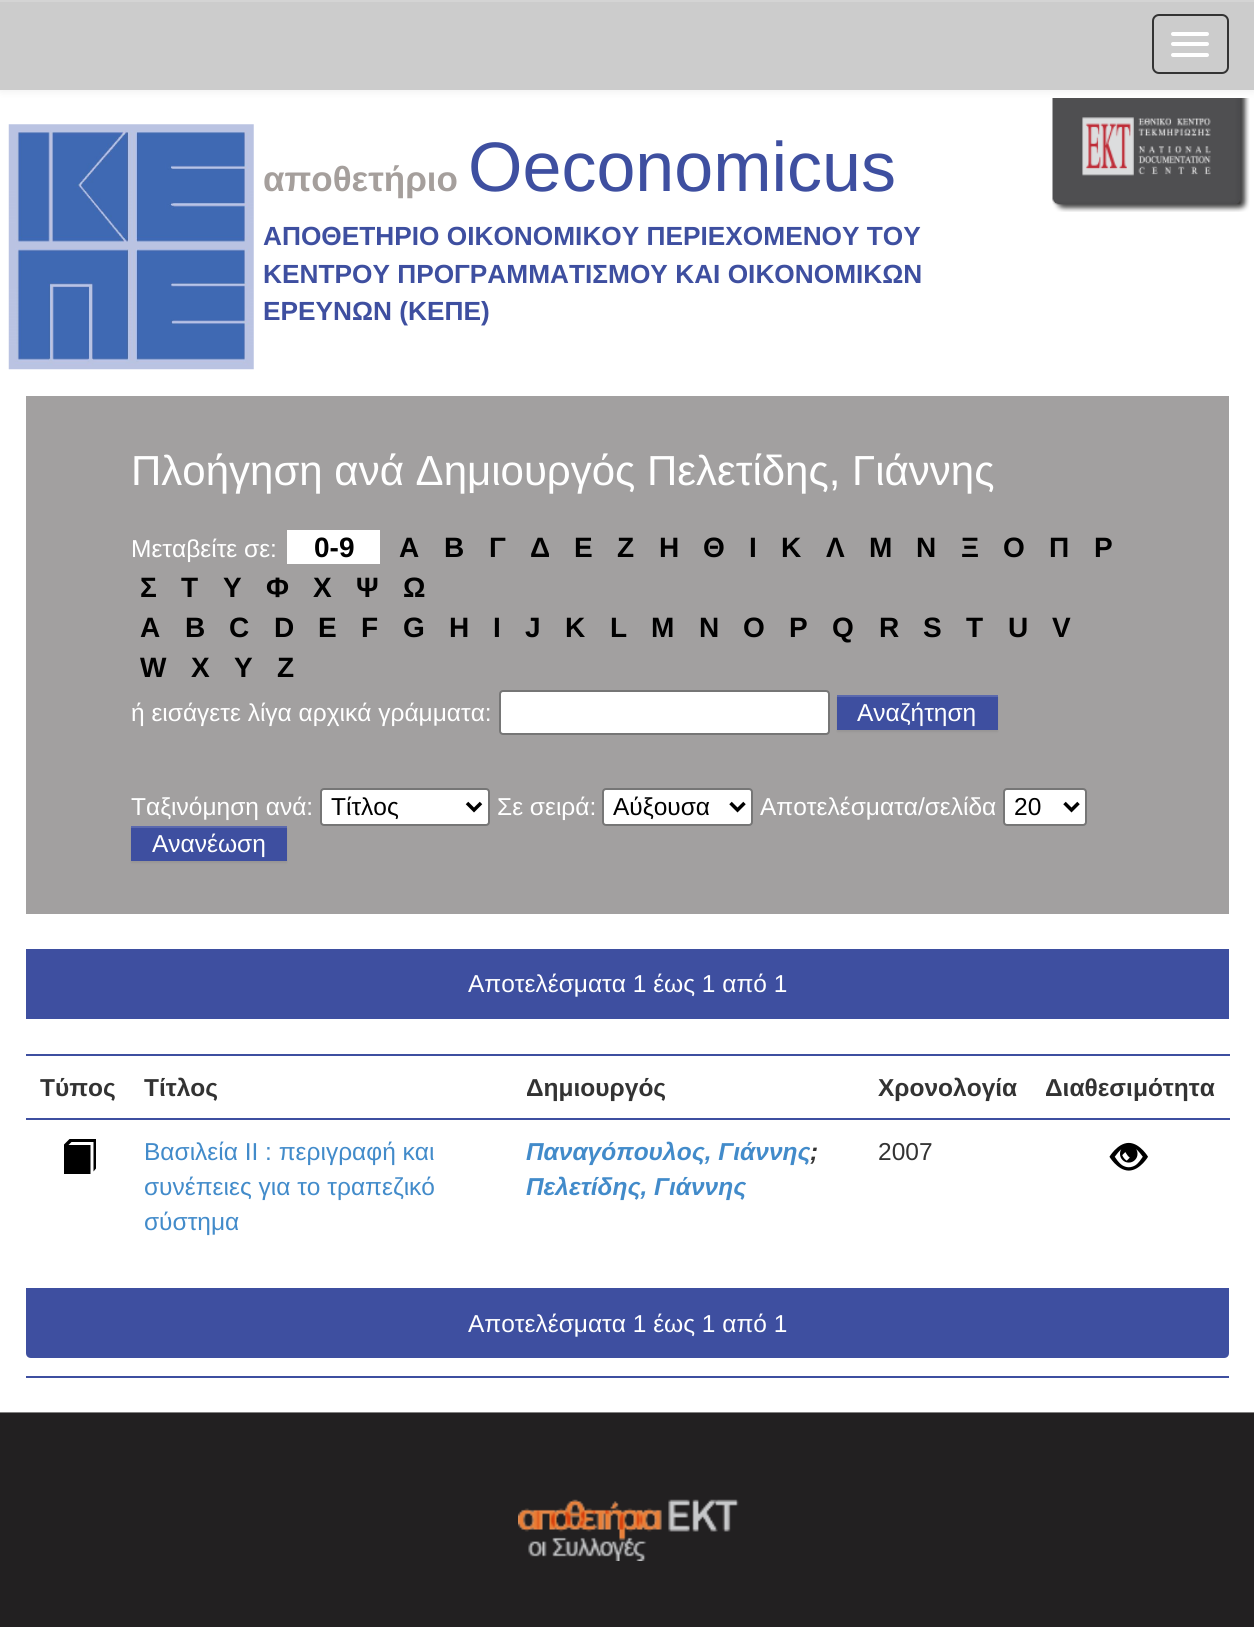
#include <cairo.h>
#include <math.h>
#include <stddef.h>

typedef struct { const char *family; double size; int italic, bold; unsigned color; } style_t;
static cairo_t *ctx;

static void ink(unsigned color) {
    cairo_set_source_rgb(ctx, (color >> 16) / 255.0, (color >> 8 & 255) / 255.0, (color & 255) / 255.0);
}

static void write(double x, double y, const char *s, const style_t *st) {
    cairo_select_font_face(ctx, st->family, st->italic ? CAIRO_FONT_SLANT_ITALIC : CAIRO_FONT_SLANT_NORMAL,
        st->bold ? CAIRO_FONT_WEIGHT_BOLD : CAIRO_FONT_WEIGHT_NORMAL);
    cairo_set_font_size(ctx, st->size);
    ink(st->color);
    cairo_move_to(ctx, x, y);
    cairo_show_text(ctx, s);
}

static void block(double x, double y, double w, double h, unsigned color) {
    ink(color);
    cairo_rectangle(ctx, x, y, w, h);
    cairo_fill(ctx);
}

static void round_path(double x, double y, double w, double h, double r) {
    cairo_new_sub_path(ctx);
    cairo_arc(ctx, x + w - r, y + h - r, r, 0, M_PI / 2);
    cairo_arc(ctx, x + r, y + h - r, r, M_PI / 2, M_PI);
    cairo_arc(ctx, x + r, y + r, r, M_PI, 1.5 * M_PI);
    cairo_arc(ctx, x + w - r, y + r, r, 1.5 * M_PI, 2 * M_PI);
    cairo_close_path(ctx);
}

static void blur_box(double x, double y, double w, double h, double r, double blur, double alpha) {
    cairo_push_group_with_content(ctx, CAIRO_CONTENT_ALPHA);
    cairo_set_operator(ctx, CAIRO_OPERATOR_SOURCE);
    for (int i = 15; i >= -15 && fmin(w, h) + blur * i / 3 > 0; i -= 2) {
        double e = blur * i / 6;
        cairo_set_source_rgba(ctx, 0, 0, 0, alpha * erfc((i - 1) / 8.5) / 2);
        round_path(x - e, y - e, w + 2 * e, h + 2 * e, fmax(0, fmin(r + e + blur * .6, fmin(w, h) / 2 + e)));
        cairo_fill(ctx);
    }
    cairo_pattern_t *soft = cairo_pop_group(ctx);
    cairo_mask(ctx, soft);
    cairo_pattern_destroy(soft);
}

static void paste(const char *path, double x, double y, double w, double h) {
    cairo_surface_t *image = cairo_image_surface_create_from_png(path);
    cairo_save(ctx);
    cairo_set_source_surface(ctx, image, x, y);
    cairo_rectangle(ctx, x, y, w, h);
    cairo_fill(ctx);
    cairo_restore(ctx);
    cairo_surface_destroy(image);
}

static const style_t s1 = {"Liberation Sans", 35, 0, 1, 0xa59f9c};
static const style_t s2 = {"Liberation Sans", 70, 0, 0, 0x3e4fa0};
static const style_t s3 = {"Liberation Sans", 26.25, 0, 1, 0x3e4fa0};
static const style_t s4 = {"Liberation Sans", 42, 0, 0, 0xffffff};
static const style_t s5 = {"Liberation Sans", 24.5, 0, 0, 0xffffff};
static const style_t s6 = {"Liberation Sans", 28, 0, 1, 0x000000};
static const style_t s7 = {"Liberation Sans", 24.5, 0, 0, 0x000000};
static const style_t s8 = {"Liberation Sans", 24.5, 0, 1, 0x333333};
static const style_t s9 = {"Liberation Sans", 24.5, 0, 0, 0x428bca};
static const style_t s10 = {"Liberation Sans", 24.5, 1, 1, 0x428bca};
static const style_t s11 = {"Liberation Sans", 24.5, 1, 1, 0x333333};
static const style_t s12 = {"Liberation Sans", 24.5, 0, 0, 0x333333};

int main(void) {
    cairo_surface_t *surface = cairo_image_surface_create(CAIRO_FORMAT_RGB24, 1254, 1627);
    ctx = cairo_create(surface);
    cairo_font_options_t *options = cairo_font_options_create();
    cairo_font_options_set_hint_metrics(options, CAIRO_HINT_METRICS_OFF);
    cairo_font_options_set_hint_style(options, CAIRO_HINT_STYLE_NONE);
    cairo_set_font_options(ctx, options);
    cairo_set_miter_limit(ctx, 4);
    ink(0xffffff);
    cairo_paint(ctx);
    paste("pic2.png", 1052, 98, 198, 114);
    ink(0x000000);
    blur_box(0, 2, 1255, 89, 0, 4.5, 0.07);
    block(0, 2, 1254, 88, 0xcccccc);
    block(0, 0, 1254, 2, 0xd4d4d4);
    round_path(1153, 15, 75, 58, 6);
    ink(0x333333);
    cairo_stroke(ctx);
    ink(0xffffff);
    round_path(1171, 32, 38, 4, 2);
    cairo_fill(ctx);
    round_path(1171, 42, 38, 4, 2);
    cairo_fill(ctx);
    round_path(1171, 53, 38, 4, 2);
    cairo_fill(ctx);
    paste("pic1.png", 8, 124, 246, 246);
    write(263, 191, "αποθετήριο", &s1);
    write(468, 191, "Oeconomicus", &s2);
    write(263, 245, "ΑΠΟΘΕΤΗΡΙΟ ΟΙΚΟΝΟΜΙΚΟΥ ΠΕΡΙΕΧΟΜΕΝΟΥ ΤΟΥ", &s3);
    write(263, 283, "ΚΕΝΤΡΟΥ ΠΡΟΓΡΑΜΜΑΤΙΣΜΟΥ ΚΑΙ ΟΙΚΟΝΟΜΙΚΩΝ", &s3);
    write(263, 320, "ΕΡΕΥΝΩΝ (ΚΕΠΕ)", &s3);
    block(26, 396, 1203, 518, 0xa2a0a0);
    write(131, 485, "Πλοήγηση ανά Δημιουργός Πελετίδης, Γιάννης", &s4);
    write(131, 557, "Μεταβείτε σε:", &s5);
    block(287, 530, 93, 34, 0xffffff);
    write(314, 557, "0-9", &s6);
    write(399, 557, "Α", &s6);
    write(444, 557, "Β", &s6);
    write(489, 557, "Γ", &s6);
    write(530, 557, "Δ", &s6);
    write(574, 557, "Ε", &s6);
    write(617, 557, "Ζ", &s6);
    write(659, 557, "Η", &s6);
    write(703, 557, "Θ", &s6);
    write(749, 557, "Ι", &s6);
    write(781, 557, "Κ", &s6);
    write(826, 557, "Λ", &s6);
    write(869, 557, "Μ", &s6);
    write(916, 557, "Ν", &s6);
    write(961, 557, "Ξ", &s6);
    write(1003, 557, "Ο", &s6);
    write(1049, 557, "Π", &s6);
    write(1094, 557, "Ρ", &s6);
    write(140, 597, "Σ", &s6);
    write(181, 597, "Τ", &s6);
    write(223, 597, "Υ", &s6);
    write(266, 597, "Φ", &s6);
    write(313, 597, "Χ", &s6);
    write(356, 597, "Ψ", &s6);
    write(403, 597, "Ω", &s6);
    write(140, 637, "A", &s6);
    write(185, 637, "B", &s6);
    write(229, 637, "C", &s6);
    write(274, 637, "D", &s6);
    write(318, 637, "E", &s6);
    write(361, 637, "F", &s6);
    write(403, 637, "G", &s6);
    write(449, 637, "H", &s6);
    write(493, 637, "I", &s6);
    write(525, 637, "J", &s6);
    write(565, 637, "K", &s6);
    write(610, 637, "L", &s6);
    write(651, 637, "M", &s6);
    write(699, 637, "N", &s6);
    write(743, 637, "O", &s6);
    write(789, 637, "P", &s6);
    write(832, 637, "Q", &s6);
    write(879, 637, "R", &s6);
    write(923, 637, "S", &s6);
    write(966, 637, "T", &s6);
    write(1008, 637, "U", &s6);
    write(1052, 637, "V", &s6);
    write(140, 677, "W", &s6);
    write(191, 677, "X", &s6);
    write(234, 677, "Y", &s6);
    write(277, 677, "Z", &s6);
    write(131, 721, "ή εισάγετε λίγα αρχικά γράμματα:", &s5);
    round_path(500, 691, 329, 43, 3);
    cairo_fill_preserve(ctx);
    ink(0x767676);
    cairo_stroke(ctx);
    ink(0x000000);
    blur_box(837, 697, 161, 35, 0, 1, 0.07);
    block(837, 697, 161, 33, 0x3e4fa0);
    block(837, 695, 161, 2, 0x5b69ae);
    write(857, 721, "Αναζήτηση", &s5);
    write(131, 815, "Ταξινόμηση ανά:", &s5);
    round_path(321, 789, 168, 36, 3);
    cairo_fill_preserve(ctx);
    ink(0x767676);
    cairo_stroke(ctx);
    cairo_new_path(ctx);
    cairo_move_to(ctx, 467, 803);
    cairo_line_to(ctx, 474, 810);
    cairo_line_to(ctx, 481, 803);
    ink(0x000000);
    cairo_set_line_width(ctx, 3.5);
    cairo_stroke(ctx);
    write(331, 815, "Τίτλος", &s7);
    write(497, 815, "Σε σειρά:", &s5);
    round_path(603, 789, 149, 36, 3);
    cairo_fill_preserve(ctx);
    ink(0x767676);
    cairo_set_line_width(ctx, 2);
    cairo_stroke(ctx);
    cairo_new_path(ctx);
    cairo_move_to(ctx, 730.5, 803);
    cairo_line_to(ctx, 737.5, 810);
    cairo_line_to(ctx, 744.5, 803);
    ink(0x000000);
    cairo_set_line_width(ctx, 3.5);
    cairo_stroke(ctx);
    write(613, 815, "Αύξουσα", &s7);
    write(760, 815, "Αποτελέσματα/σελίδα", &s5);
    round_path(1004, 789, 82, 36, 3);
    cairo_fill_preserve(ctx);
    ink(0x767676);
    cairo_set_line_width(ctx, 2);
    cairo_stroke(ctx);
    cairo_new_path(ctx);
    cairo_move_to(ctx, 1064.5, 803);
    cairo_line_to(ctx, 1071.5, 810);
    cairo_line_to(ctx, 1078.5, 803);
    ink(0x000000);
    cairo_set_line_width(ctx, 3.5);
    cairo_stroke(ctx);
    write(1014, 815, "20", &s7);
    ink(0x000000);
    blur_box(131, 828, 156, 35, 0, 1, 0.07);
    block(131, 828, 156, 33, 0x3e4fa0);
    block(131, 826, 156, 2, 0x5b69ae);
    write(152, 852, "Ανανέωση", &s5);
    block(26, 949, 1203, 70, 0x3e4fa0);
    write(468, 992, "Αποτελέσματα 1 έως 1 από 1", &s5);
    block(26, 1376, 1203, 2, 0x3e4fa0);
    write(40, 1096, "Τύπος", &s8);
    write(144, 1096, "Τίτλος", &s8);
    write(526, 1096, "Δημιουργός", &s8);
    write(878, 1096, "Χρονολογία", &s8);
    block(26, 1054, 1204, 2, 0x3e4fa0);
    write(1045, 1096, "Διαθεσιμότητα", &s8);
    block(26, 1118, 1204, 2, 0x3e4fa0);
    paste("pic3.png", 1109, 1142, 39, 29);
    ink(0x000000);
    cairo_new_path(ctx);
    cairo_move_to(ctx, 96, 1139);
    cairo_line_to(ctx, 96, 1168.5);
    cairo_line_to(ctx, 93.5, 1171.5);
    cairo_line_to(ctx, 93.5, 1142);
    cairo_line_to(ctx, 71.5, 1142);
    cairo_line_to(ctx, 68.5, 1145);
    cairo_line_to(ctx, 90.5, 1145);
    cairo_line_to(ctx, 90.5, 1174);
    cairo_line_to(ctx, 64, 1174);
    cairo_line_to(ctx, 64, 1144.5);
    cairo_line_to(ctx, 69.5, 1139);
    cairo_close_path(ctx);
    cairo_fill(ctx);
    write(144, 1160, "Βασιλεία ΙΙ : περιγραφή και", &s9);
    write(144, 1195, "συνέπειες για το τραπεζικό", &s9);
    write(144, 1230, "σύστημα", &s9);
    write(526, 1160, "Παναγόπουλος, Γιάννης", &s10);
    write(810, 1160, ";", &s11);
    write(526, 1195, "Πελετίδης, Γιάννης", &s10);
    write(878, 1160, "2007", &s12);
    ink(0x3e4fa0);
    cairo_new_path(ctx);
    cairo_move_to(ctx, 26, 1288);
    cairo_line_to(ctx, 1229, 1288);
    cairo_line_to(ctx, 1229, 1353);
    cairo_curve_to(ctx, 1229, 1356, 1227, 1358, 1224, 1358);
    cairo_line_to(ctx, 31, 1358);
    cairo_curve_to(ctx, 28, 1358, 26, 1356, 26, 1353);
    cairo_close_path(ctx);
    cairo_fill(ctx);
    write(468, 1332, "Αποτελέσματα 1 έως 1 από 1", &s5);
    paste("pic4.png", 0, 1412, 1254, 215);
    cairo_surface_write_to_png(surface, "screenshot.png");
    cairo_font_options_destroy(options);
    cairo_destroy(ctx);
    cairo_surface_destroy(surface);
    return 0;
}
